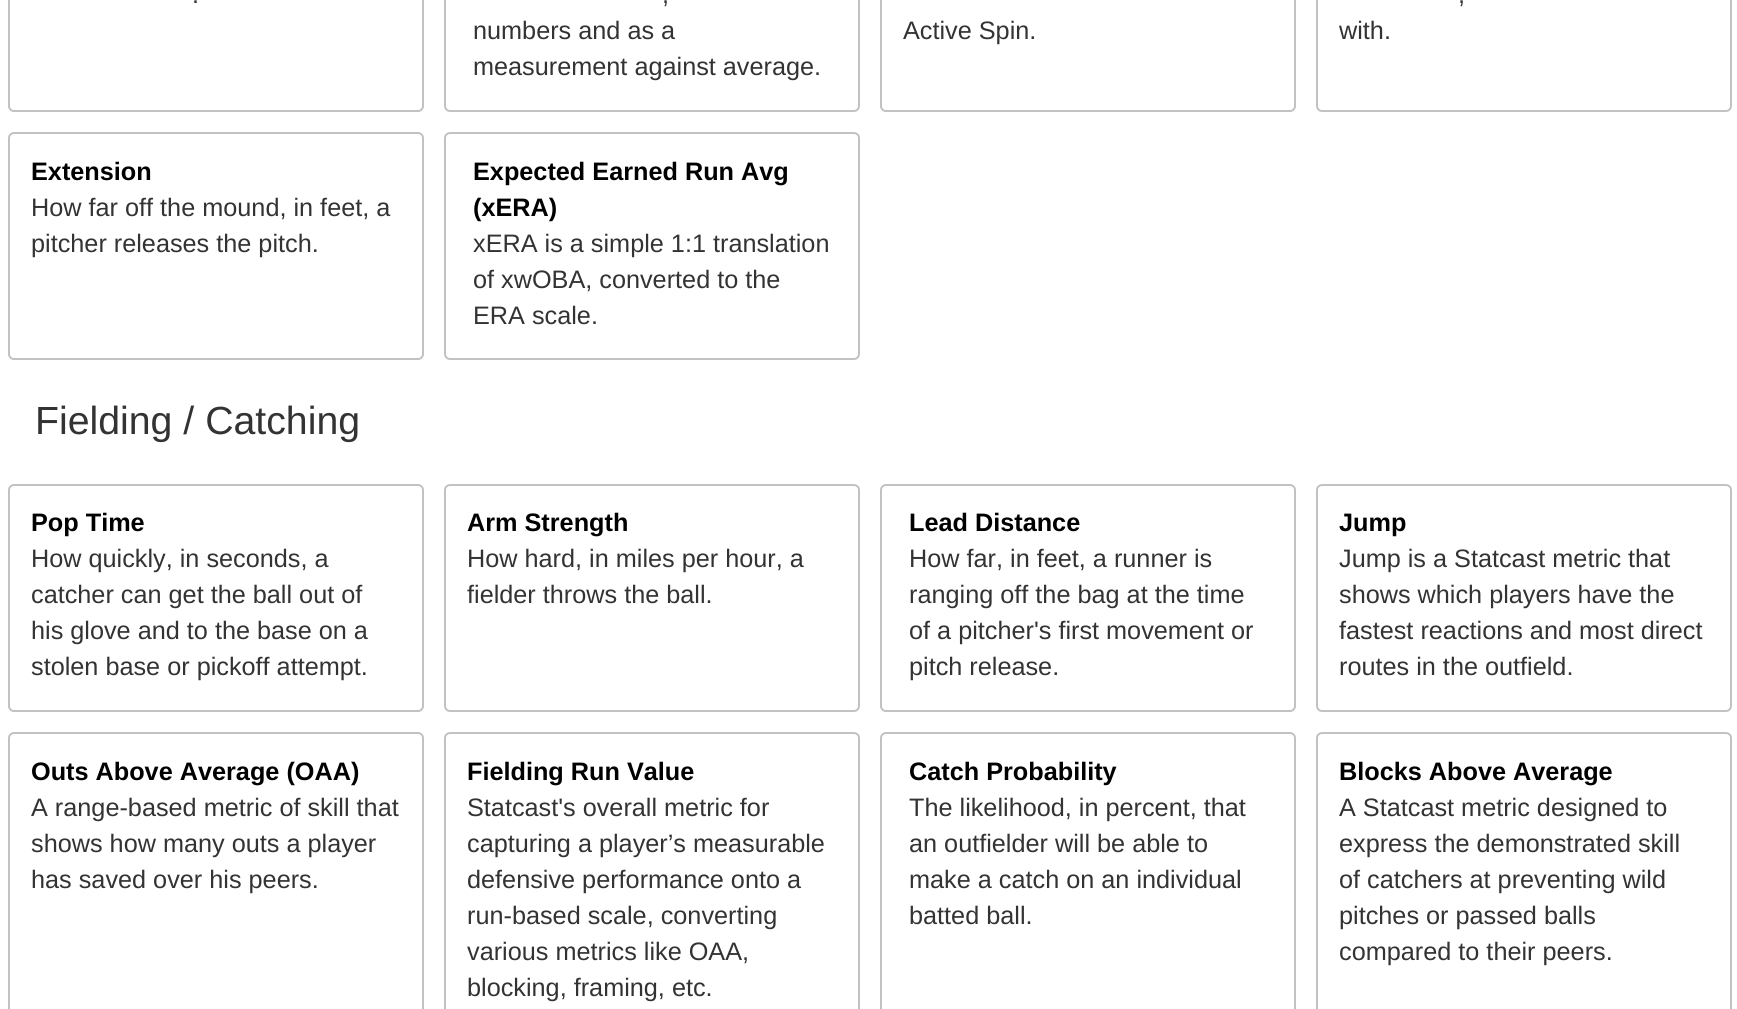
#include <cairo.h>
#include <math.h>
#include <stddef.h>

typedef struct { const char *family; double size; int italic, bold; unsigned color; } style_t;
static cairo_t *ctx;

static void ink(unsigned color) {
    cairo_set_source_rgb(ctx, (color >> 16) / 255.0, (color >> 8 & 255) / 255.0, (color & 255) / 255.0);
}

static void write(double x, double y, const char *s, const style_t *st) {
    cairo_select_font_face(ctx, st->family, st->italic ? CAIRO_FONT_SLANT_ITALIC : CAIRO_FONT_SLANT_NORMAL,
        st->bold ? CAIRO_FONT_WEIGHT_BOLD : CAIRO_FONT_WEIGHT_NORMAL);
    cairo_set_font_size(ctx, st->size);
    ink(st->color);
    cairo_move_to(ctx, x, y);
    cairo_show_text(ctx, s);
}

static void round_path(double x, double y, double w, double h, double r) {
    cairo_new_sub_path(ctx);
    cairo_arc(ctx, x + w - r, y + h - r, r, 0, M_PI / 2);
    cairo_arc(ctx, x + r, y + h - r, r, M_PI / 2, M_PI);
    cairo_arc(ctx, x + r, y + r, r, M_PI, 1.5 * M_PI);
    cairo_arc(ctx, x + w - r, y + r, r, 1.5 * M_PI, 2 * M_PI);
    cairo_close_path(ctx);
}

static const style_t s1 = {"Liberation Sans", 25.25, 0, 0, 0x333333};
static const style_t s2 = {"Liberation Sans", 25.25, 0, 1, 0x000000};
static const style_t s3 = {"Liberation Sans", 39.25, 0, 0, 0x333333};

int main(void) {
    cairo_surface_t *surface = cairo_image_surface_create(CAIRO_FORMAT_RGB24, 1737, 1009);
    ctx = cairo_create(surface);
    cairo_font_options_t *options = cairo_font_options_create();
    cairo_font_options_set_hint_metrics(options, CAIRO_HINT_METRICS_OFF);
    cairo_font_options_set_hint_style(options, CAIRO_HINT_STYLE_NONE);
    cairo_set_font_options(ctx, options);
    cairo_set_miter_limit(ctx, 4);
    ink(0xffffff);
    cairo_paint(ctx);
    round_path(9, -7, 414, 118, 5);
    ink(0xc2c2c2);
    cairo_stroke(ctx);
    write(192, 3, ".", &s1);
    round_path(445, -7, 414, 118, 5);
    ink(0xc2c2c2);
    cairo_stroke(ctx);
    write(662, 3, ",", &s1);
    write(473, 39, "numbers and as a", &s1);
    write(473, 75, "measurement against average.", &s1);
    round_path(881, -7, 414, 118, 5);
    ink(0xc2c2c2);
    cairo_stroke(ctx);
    write(903, 39, "Active Spin.", &s1);
    round_path(1317, -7, 414, 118, 5);
    ink(0xc2c2c2);
    cairo_stroke(ctx);
    write(1458, 3, ",", &s1);
    write(1339, 39, "with.", &s1);
    round_path(9, 133, 414, 226, 5);
    ink(0xc2c2c2);
    cairo_stroke(ctx);
    write(31, 180, "Extension", &s2);
    write(31, 216, "How far off the mound, in feet, a", &s1);
    write(31, 252, "pitcher releases the pitch.", &s1);
    round_path(445, 133, 414, 226, 5);
    ink(0xc2c2c2);
    cairo_stroke(ctx);
    write(473, 180, "Expected Earned Run Avg", &s2);
    write(473, 216, "(xERA)", &s2);
    write(473, 252, "xERA is a simple 1:1 translation", &s1);
    write(473, 288, "of xwOBA, converted to the", &s1);
    write(473, 324, "ERA scale.", &s1);
    write(35, 434, "Fielding / Catching", &s3);
    round_path(9, 485, 414, 226, 5);
    ink(0xc2c2c2);
    cairo_stroke(ctx);
    write(31, 531, "Pop Time", &s2);
    write(31, 567, "How quickly, in seconds, a", &s1);
    write(31, 603, "catcher can get the ball out of", &s1);
    write(31, 639, "his glove and to the base on a", &s1);
    write(31, 675, "stolen base or pickoff attempt.", &s1);
    round_path(445, 485, 414, 226, 5);
    ink(0xc2c2c2);
    cairo_stroke(ctx);
    write(467, 531, "Arm Strength", &s2);
    write(467, 567, "How hard, in miles per hour, a", &s1);
    write(467, 603, "fielder throws the ball.", &s1);
    round_path(881, 485, 414, 226, 5);
    ink(0xc2c2c2);
    cairo_stroke(ctx);
    write(909, 531, "Lead Distance", &s2);
    write(909, 567, "How far, in feet, a runner is", &s1);
    write(909, 603, "ranging off the bag at the time", &s1);
    write(909, 639, "of a pitcher's first movement or", &s1);
    write(909, 675, "pitch release.", &s1);
    round_path(1317, 485, 414, 226, 5);
    ink(0xc2c2c2);
    cairo_stroke(ctx);
    write(1339, 531, "Jump", &s2);
    write(1339, 567, "Jump is a Statcast metric that", &s1);
    write(1339, 603, "shows which players have the", &s1);
    write(1339, 639, "fastest reactions and most direct", &s1);
    write(1339, 675, "routes in the outfield.", &s1);
    round_path(9, 733, 414, 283, 5);
    ink(0xc2c2c2);
    cairo_stroke(ctx);
    write(31, 780, "Outs Above Average (OAA)", &s2);
    write(31, 816, "A range-based metric of skill that", &s1);
    write(31, 852, "shows how many outs a player", &s1);
    write(31, 888, "has saved over his peers.", &s1);
    round_path(445, 733, 414, 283, 5);
    ink(0xc2c2c2);
    cairo_stroke(ctx);
    write(467, 780, "Fielding Run Value", &s2);
    write(467, 816, "Statcast's overall metric for", &s1);
    write(467, 852, "capturing a player’s measurable", &s1);
    write(467, 888, "defensive performance onto a", &s1);
    write(467, 924, "run-based scale, converting", &s1);
    write(467, 960, "various metrics like OAA,", &s1);
    write(467, 996, "blocking, framing, etc.", &s1);
    round_path(881, 733, 414, 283, 5);
    ink(0xc2c2c2);
    cairo_stroke(ctx);
    write(909, 780, "Catch Probability", &s2);
    write(909, 816, "The likelihood, in percent, that", &s1);
    write(909, 852, "an outfielder will be able to", &s1);
    write(909, 888, "make a catch on an individual", &s1);
    write(909, 924, "batted ball.", &s1);
    round_path(1317, 733, 414, 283, 5);
    ink(0xc2c2c2);
    cairo_stroke(ctx);
    write(1339, 780, "Blocks Above Average", &s2);
    write(1339, 816, "A Statcast metric designed to", &s1);
    write(1339, 852, "express the demonstrated skill", &s1);
    write(1339, 888, "of catchers at preventing wild", &s1);
    write(1339, 924, "pitches or passed balls", &s1);
    write(1339, 960, "compared to their peers.", &s1);
    cairo_surface_write_to_png(surface, "screenshot.png");
    cairo_font_options_destroy(options);
    cairo_destroy(ctx);
    cairo_surface_destroy(surface);
    return 0;
}
